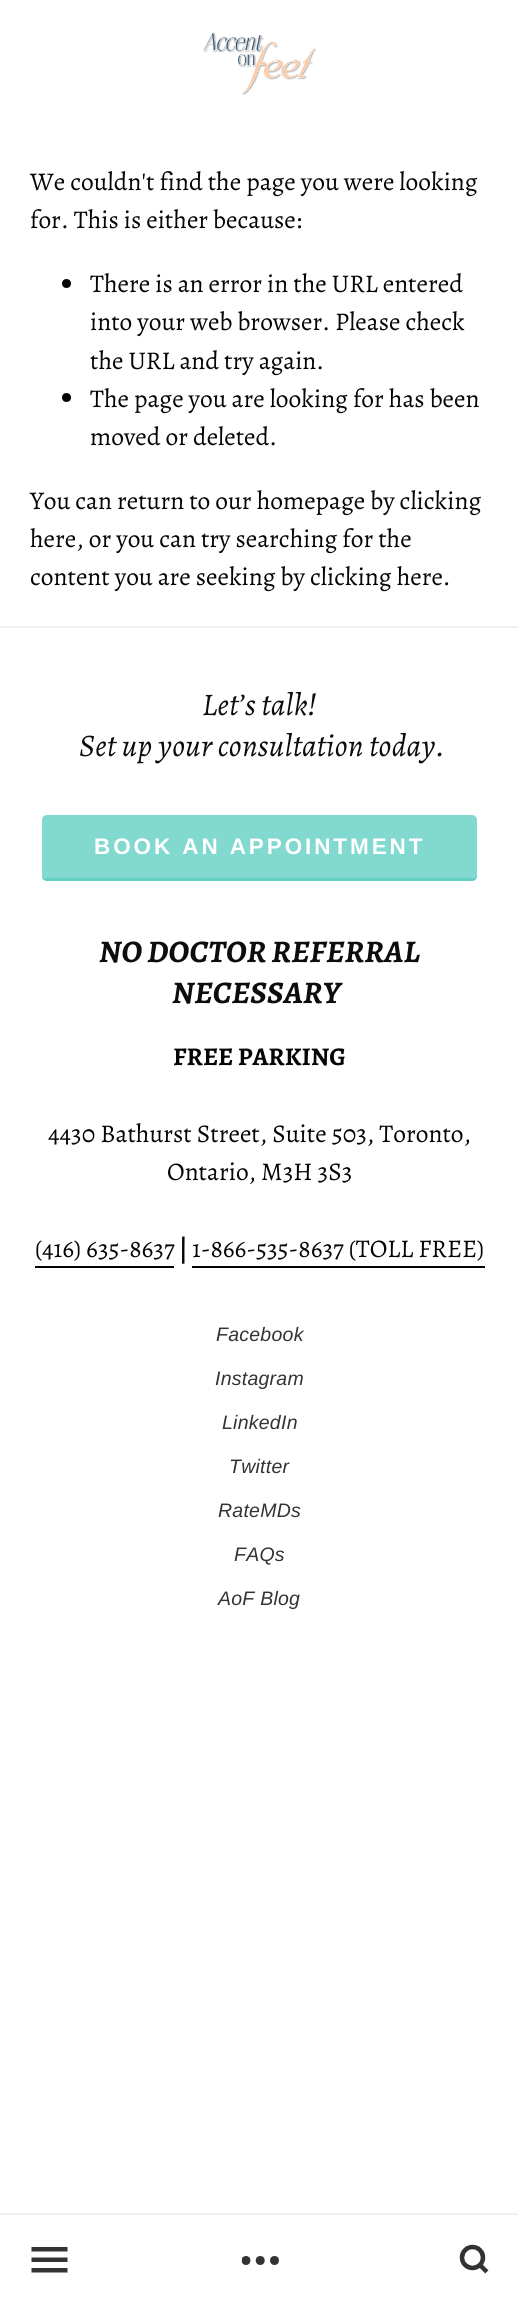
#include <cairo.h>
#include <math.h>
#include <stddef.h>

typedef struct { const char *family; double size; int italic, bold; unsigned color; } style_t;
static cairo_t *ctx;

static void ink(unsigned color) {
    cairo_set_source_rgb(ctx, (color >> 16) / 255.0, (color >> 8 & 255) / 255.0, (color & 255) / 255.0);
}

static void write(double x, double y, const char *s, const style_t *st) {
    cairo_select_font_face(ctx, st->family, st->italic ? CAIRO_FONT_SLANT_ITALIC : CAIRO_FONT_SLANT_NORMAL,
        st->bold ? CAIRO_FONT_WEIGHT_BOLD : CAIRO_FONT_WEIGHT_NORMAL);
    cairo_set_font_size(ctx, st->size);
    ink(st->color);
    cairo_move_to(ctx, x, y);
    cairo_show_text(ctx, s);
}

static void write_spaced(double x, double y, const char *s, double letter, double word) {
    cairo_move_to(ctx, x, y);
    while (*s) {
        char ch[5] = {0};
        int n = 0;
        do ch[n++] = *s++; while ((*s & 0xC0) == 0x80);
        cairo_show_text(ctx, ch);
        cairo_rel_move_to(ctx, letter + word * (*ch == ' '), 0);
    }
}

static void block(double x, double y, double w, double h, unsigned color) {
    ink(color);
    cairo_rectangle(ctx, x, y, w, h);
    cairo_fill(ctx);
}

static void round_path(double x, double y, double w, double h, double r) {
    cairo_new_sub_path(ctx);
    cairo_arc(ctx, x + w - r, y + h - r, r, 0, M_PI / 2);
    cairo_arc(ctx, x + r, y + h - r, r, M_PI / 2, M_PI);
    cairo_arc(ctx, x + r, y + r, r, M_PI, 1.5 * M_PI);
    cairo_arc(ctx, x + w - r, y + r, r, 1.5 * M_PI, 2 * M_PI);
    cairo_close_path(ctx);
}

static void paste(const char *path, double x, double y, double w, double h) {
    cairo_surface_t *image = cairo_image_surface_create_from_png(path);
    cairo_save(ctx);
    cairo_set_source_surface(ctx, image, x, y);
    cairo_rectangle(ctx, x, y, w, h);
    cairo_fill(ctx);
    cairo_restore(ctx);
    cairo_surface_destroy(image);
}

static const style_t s1 = {"Alegreya", 25.5, 0, 0, 0x050505};
static const style_t s2 = {"Alegreya", 25.5, 0, 1, 0x050505};

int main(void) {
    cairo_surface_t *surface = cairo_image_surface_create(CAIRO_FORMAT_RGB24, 518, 2305);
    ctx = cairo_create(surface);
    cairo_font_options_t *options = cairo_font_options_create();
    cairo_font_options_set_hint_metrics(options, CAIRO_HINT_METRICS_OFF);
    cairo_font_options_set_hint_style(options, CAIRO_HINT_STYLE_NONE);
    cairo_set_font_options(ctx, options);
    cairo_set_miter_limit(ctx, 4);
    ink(0xffffff);
    cairo_paint(ctx);
    paste("pic1.png", 203, 32, 113, 63);
    write(30, 190, "We couldn't find the page you were looking", &s1);
    write(30, 228, "for. This is either because:", &s1);
    cairo_new_path(ctx);
    cairo_arc(ctx, 66.5, 283.5, 4.5, 0, 2 * M_PI);
    cairo_fill(ctx);
    write(90, 292, "There is an error in the URL entered", &s1);
    write(90, 330, "into your web browser. Please check", &s1);
    write(90, 369, "the URL and try again.", &s1);
    cairo_new_path(ctx);
    cairo_arc(ctx, 66.5, 397.5, 4.5, 0, 2 * M_PI);
    cairo_fill(ctx);
    write(90, 407, "The page you are looking for has been", &s1);
    write(90, 445, "moved or deleted.", &s1);
    write(30, 509, "You can return to our homepage by clicking", &s1);
    write(30, 547, "here, or you can try searching for the", &s1);
    write(30, 585, "content you are seeking by clicking here.", &s1);
    block(0, 626, 518, 2, 0xf0f0f0);
    cairo_select_font_face(ctx, "Alegreya", CAIRO_FONT_SLANT_ITALIC, CAIRO_FONT_WEIGHT_NORMAL);
    cairo_set_font_size(ctx, 31.5);
    ink(0x0c0d0d);
    write_spaced(202, 715, "Let’s talk!", 0.3, 0);
    write_spaced(79, 756, "Set up your consultation today.", 0.3, 0);
    ink(0x63cfc4);
    cairo_new_path(ctx);
    cairo_move_to(ctx, 42, 873);
    cairo_line_to(ctx, 42, 876);
    cairo_curve_to(ctx, 42, 879, 44, 881, 47, 881);
    cairo_line_to(ctx, 472, 881);
    cairo_curve_to(ctx, 475, 881, 477, 879, 477, 876);
    cairo_line_to(ctx, 477, 873);
    cairo_curve_to(ctx, 477, 875, 475, 878, 472, 878);
    cairo_line_to(ctx, 46, 878);
    cairo_curve_to(ctx, 44, 878, 42, 875, 42, 873);
    cairo_close_path(ctx);
    cairo_fill(ctx);
    ink(0x82d9d0);
    round_path(42, 815, 435, 63, 5);
    cairo_fill(ctx);
    cairo_select_font_face(ctx, "Liberation Sans", CAIRO_FONT_SLANT_NORMAL, CAIRO_FONT_WEIGHT_BOLD);
    cairo_set_font_size(ctx, 22.5);
    ink(0xffffff);
    write_spaced(94, 854, "BOOK AN APPOINTMENT", 2.9, 0);
    cairo_select_font_face(ctx, "Alegreya", CAIRO_FONT_SLANT_ITALIC, CAIRO_FONT_WEIGHT_BOLD);
    cairo_set_font_size(ctx, 31.5);
    ink(0x0c0d0d);
    write_spaced(99, 962, "NO DOCTOR REFERRAL", 0.3, 0);
    write_spaced(172, 1003, "NECESSARY", 0.3, 0);
    write(173, 1065, "FREE PARKING", &s2);
    write(48, 1142, "4430 Bathurst Street, Suite 503, Toronto,", &s1);
    write(167, 1180, "Ontario, M3H 3S3", &s1);
    write(35, 1257, "(416) 635-8637", &s1);
    block(35, 1266, 139, 2, 0x030303);
    write(179, 1257, "|", &s2);
    write(192, 1257, "1-866-535-8637 (TOLL FREE)", &s1);
    block(192, 1266, 293, 2, 0x030303);
    cairo_select_font_face(ctx, "Liberation Sans", CAIRO_FONT_SLANT_ITALIC, CAIRO_FONT_WEIGHT_NORMAL);
    cairo_set_font_size(ctx, 19.5);
    ink(0x333333);
    write_spaced(216, 1341, "Facebook", 0.25, 0);
    write_spaced(215, 1385, "Instagram", 0.25, 0);
    write_spaced(222, 1429, "LinkedIn", 0.25, 0);
    write_spaced(229, 1473, "Twitter", 0.25, 0);
    write_spaced(218, 1517, "RateMDs", 0.25, 0);
    write_spaced(234, 1561, "FAQs", 0.25, 0);
    write_spaced(218, 1605, "AoF Blog", 0.25, 0);
    block(0, 2213, 518, 2, 0xf0f0f0);
    paste("pic2.png", 31, 2247, 37, 26);
    paste("pic3.png", 241, 2256, 38, 9);
    paste("pic4.png", 459, 2244, 30, 30);
    cairo_surface_write_to_png(surface, "screenshot.png");
    cairo_font_options_destroy(options);
    cairo_destroy(ctx);
    cairo_surface_destroy(surface);
    return 0;
}
